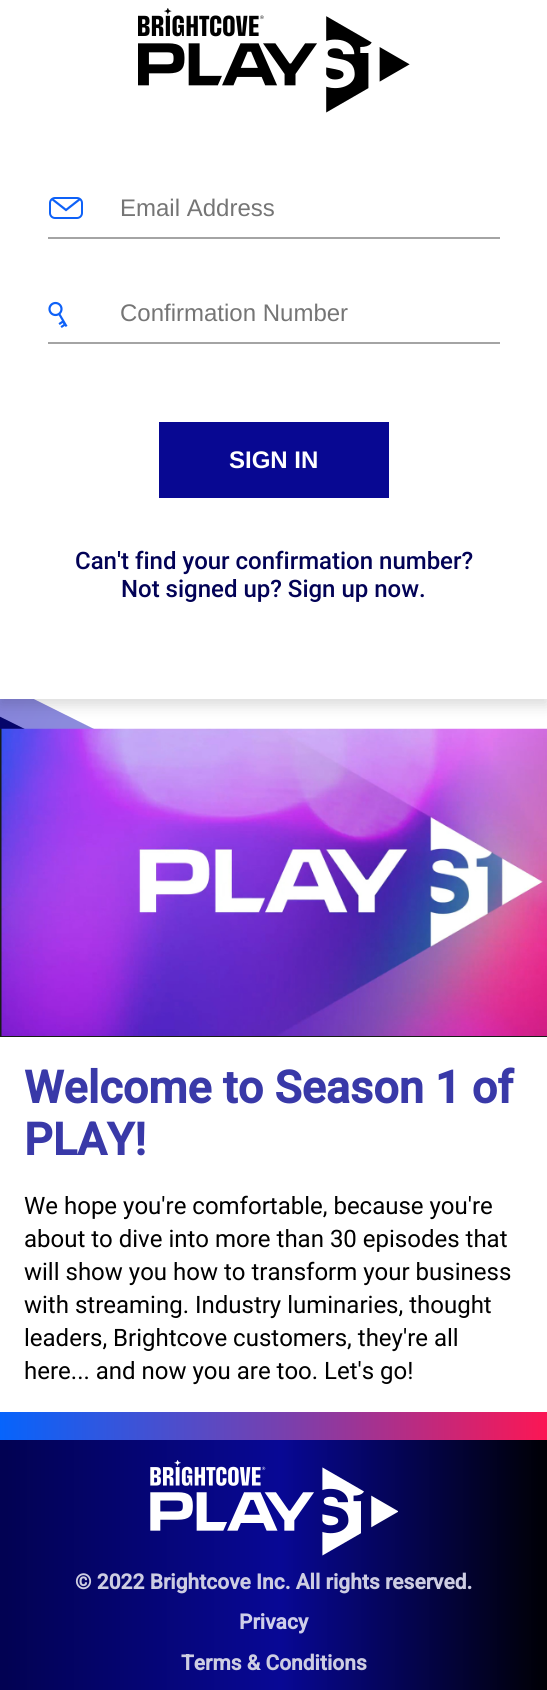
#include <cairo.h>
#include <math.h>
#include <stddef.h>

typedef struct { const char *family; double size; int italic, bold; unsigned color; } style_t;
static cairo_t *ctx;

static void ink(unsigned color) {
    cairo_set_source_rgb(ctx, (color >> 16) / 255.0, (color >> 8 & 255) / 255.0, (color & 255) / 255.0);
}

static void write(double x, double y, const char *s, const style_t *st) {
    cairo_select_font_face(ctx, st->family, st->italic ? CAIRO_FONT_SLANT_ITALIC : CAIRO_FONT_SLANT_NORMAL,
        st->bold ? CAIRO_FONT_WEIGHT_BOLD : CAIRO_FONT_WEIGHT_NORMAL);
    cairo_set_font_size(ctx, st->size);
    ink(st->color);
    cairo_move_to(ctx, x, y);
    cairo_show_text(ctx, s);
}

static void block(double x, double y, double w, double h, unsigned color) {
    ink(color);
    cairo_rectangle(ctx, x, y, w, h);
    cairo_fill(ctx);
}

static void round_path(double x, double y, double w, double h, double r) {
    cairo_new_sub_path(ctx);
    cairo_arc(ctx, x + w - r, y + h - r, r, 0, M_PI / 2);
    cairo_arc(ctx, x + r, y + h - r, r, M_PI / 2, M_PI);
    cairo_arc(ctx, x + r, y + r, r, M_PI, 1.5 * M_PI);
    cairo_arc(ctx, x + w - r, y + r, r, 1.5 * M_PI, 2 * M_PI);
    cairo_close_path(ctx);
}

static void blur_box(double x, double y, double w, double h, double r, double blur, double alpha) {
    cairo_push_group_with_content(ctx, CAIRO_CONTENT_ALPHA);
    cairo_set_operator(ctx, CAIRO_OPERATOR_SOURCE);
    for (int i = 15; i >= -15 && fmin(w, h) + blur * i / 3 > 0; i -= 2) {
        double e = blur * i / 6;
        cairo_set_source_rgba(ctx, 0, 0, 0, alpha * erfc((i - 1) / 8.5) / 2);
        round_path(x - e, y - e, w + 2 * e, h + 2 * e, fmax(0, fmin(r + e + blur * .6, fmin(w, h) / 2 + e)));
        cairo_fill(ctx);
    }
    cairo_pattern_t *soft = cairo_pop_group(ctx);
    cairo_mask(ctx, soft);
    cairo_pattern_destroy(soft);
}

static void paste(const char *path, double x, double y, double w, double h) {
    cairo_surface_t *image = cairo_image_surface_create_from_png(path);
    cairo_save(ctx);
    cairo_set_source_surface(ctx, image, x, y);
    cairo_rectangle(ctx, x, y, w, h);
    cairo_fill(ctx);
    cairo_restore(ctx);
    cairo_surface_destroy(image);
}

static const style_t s1 = {"Liberation Sans", 24, 0, 0, 0x757575};
static const style_t s2 = {"Liberation Sans", 24, 0, 1, 0xffffff};
static const style_t s3 = {"Roboto Medium", 24, 0, 0, 0x020256};
static const style_t s4 = {"Roboto", 45, 0, 1, 0x3939a8};
static const style_t s5 = {"Roboto", 24, 0, 0, 0x000000};
static const style_t s6 = {"Roboto", 21, 0, 1, 0xcdcde2};
static const style_t s7 = {"Roboto", 21, 0, 1, 0xcecee9};

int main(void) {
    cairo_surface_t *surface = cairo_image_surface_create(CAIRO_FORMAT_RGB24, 547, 1690);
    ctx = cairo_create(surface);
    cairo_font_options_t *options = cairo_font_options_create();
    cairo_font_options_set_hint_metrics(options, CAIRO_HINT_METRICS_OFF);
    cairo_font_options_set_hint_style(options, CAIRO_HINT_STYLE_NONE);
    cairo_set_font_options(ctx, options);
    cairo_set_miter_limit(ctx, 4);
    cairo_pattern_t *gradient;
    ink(0xffffff);
    cairo_paint(ctx);
    gradient = cairo_pattern_create_linear(-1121, 210, 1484, 1462);
    cairo_pattern_add_color_stop_rgba(gradient, 0, 0.882, 0.118, 0.4, 1);
    cairo_pattern_add_color_stop_rgba(gradient, 0.16, 0.31, 0.302, 0.792, 1);
    cairo_pattern_add_color_stop_rgba(gradient, 1, 1, 1, 1, 1);
    cairo_set_source(ctx, gradient);
    cairo_pattern_destroy(gradient);
    cairo_new_path(ctx);
    cairo_move_to(ctx, -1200, 85);
    cairo_line_to(ctx, 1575, 1466);
    cairo_line_to(ctx, 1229, 1522);
    cairo_line_to(ctx, -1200, 1522);
    cairo_close_path(ctx);
    cairo_fill(ctx);
    gradient = cairo_pattern_create_radial(0, 0, 0, 0, 0, 1);
    cairo_pattern_set_matrix(gradient, &(cairo_matrix_t){1.0 / 1357, 0, 0, 1.0 / 2621, -1.0 * -1085 / 1357, -1.0 * 1437 / 2621});
    cairo_pattern_add_color_stop_rgba(gradient, 0, 0.004, 0.004, 0.157, 1);
    cairo_pattern_add_color_stop_rgba(gradient, 1, 0.024, 0.024, 0.459, 1);
    cairo_set_source(ctx, gradient);
    cairo_pattern_destroy(gradient);
    cairo_new_path(ctx);
    cairo_move_to(ctx, -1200, 120);
    cairo_line_to(ctx, 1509, 1467);
    cairo_line_to(ctx, 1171, 1522);
    cairo_line_to(ctx, -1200, 1522);
    cairo_close_path(ctx);
    cairo_fill(ctx);
    ink(0x000000);
    blur_box(0, -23, 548, 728, 0, 7.5, 0.15);
    block(0, 0, 547, 699, 0xffffff);
    paste("pic1.png", 138, 8, 272, 105);
    round_path(50, 198, 32, 20, 5);
    ink(0x0e61f7);
    cairo_stroke(ctx);
    cairo_new_path(ctx);
    cairo_move_to(ctx, 52, 199);
    cairo_line_to(ctx, 66, 210);
    cairo_line_to(ctx, 80, 199);
    cairo_set_line_width(ctx, 2.2);
    cairo_stroke(ctx);
    block(48, 237, 452, 2, 0xa4a4a4);
    write(120, 216, "Email Address", &s1);
    cairo_new_path(ctx);
    cairo_arc(ctx, 55.5, 309, 6, 0, 2 * M_PI);
    ink(0x0e61f7);
    cairo_stroke(ctx);
    cairo_new_path(ctx);
    cairo_move_to(ctx, 59.5, 314.5);
    cairo_line_to(ctx, 66, 325.5);
    cairo_move_to(ctx, 60, 323.5);
    cairo_line_to(ctx, 63, 321.5);
    cairo_line_to(ctx, 65, 324.5);
    cairo_line_to(ctx, 62, 326.5);
    cairo_set_line_cap(ctx, CAIRO_LINE_CAP_SQUARE);
    cairo_stroke(ctx);
    block(48, 342, 452, 2, 0xa4a4a4);
    write(120, 321, "Confirmation Number", &s1);
    block(159, 422, 230, 76, 0x080892);
    write(229, 468, "SIGN IN", &s2);
    write(75, 569, "Can't find your confirmation number?", &s3);
    write(121, 597, "Not signed up? Sign up now.", &s3);
    block(0, 1037, 547, 375, 0xffffff);
    block(0, 729, 547, 308, 0x151b17);
    paste("pic2.png", 1, 728, 546, 308);
    write(24, 1103, "Welcome to Season 1 of", &s4);
    write(24, 1155, "PLAY!", &s4);
    write(24, 1214, "We hope you're comfortable, because you're", &s5);
    write(24, 1247, "about to dive into more than 30 episodes that", &s5);
    write(24, 1280, "will show you how to transform your business", &s5);
    write(24, 1313, "with streaming. Industry luminaries, thought", &s5);
    write(24, 1346, "leaders, Brightcove customers, they're all", &s5);
    write(24, 1379, "here... and now you are too. Let's go!", &s5);
    gradient = cairo_pattern_create_linear(-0.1, 1559, 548, 1559);
    cairo_pattern_add_color_stop_rgba(gradient, 0.01, 0.008, 0.008, 0.325, 1);
    cairo_pattern_add_color_stop_rgba(gradient, 0.51, 0.031, 0.031, 0.584, 1);
    cairo_pattern_add_color_stop_rgba(gradient, 1, 0, 0, 0.016, 1);
    cairo_set_source(ctx, gradient);
    cairo_pattern_destroy(gradient);
    cairo_rectangle(ctx, 0, 1440, 547, 250);
    cairo_fill(ctx);
    gradient = cairo_pattern_create_linear(0, 1426, 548, 1426);
    cairo_pattern_add_color_stop_rgba(gradient, 0, 0.024, 0.392, 0.988, 1);
    cairo_pattern_add_color_stop_rgba(gradient, 0.53, 0.482, 0.247, 0.675, 1);
    cairo_pattern_add_color_stop_rgba(gradient, 1, 0.988, 0.086, 0.329, 1);
    cairo_set_source(ctx, gradient);
    cairo_pattern_destroy(gradient);
    cairo_rectangle(ctx, 0, 1412, 547, 28);
    cairo_fill(ctx);
    paste("pic3.png", 150, 1460, 248, 96);
    write(75, 1589, "© 2022 Brightcove Inc. All rights reserved.", &s6);
    write(239, 1629, "Privacy", &s7);
    write(181, 1670, "Terms & Conditions", &s6);
    cairo_surface_write_to_png(surface, "screenshot.png");
    cairo_font_options_destroy(options);
    cairo_destroy(ctx);
    cairo_surface_destroy(surface);
    return 0;
}
